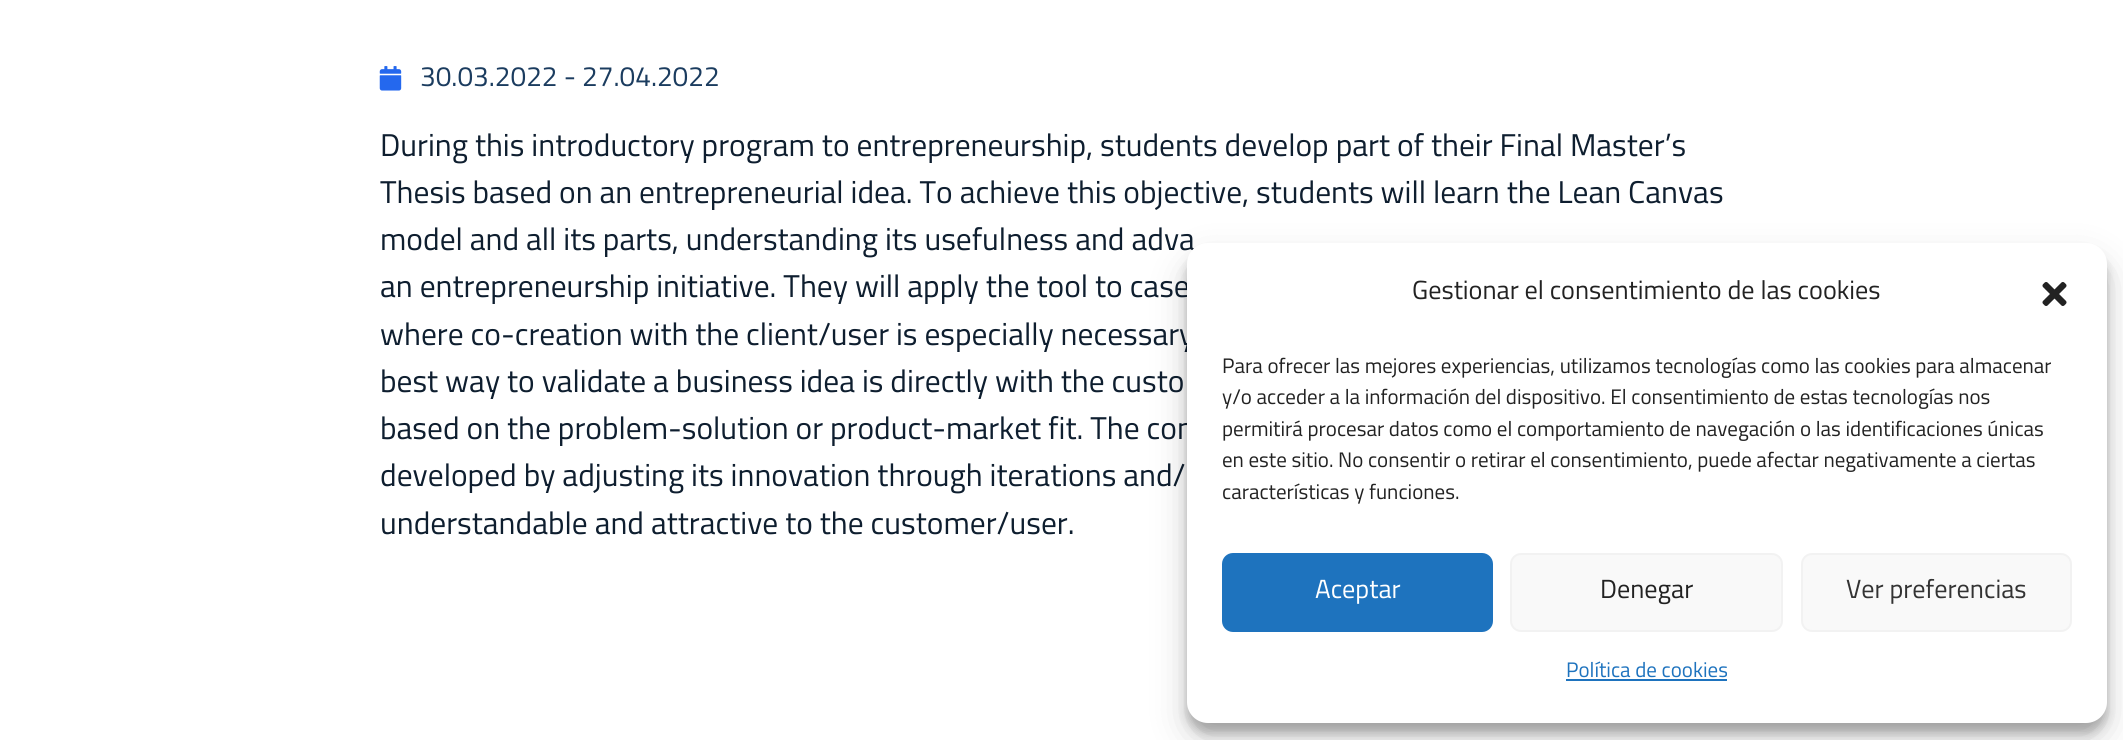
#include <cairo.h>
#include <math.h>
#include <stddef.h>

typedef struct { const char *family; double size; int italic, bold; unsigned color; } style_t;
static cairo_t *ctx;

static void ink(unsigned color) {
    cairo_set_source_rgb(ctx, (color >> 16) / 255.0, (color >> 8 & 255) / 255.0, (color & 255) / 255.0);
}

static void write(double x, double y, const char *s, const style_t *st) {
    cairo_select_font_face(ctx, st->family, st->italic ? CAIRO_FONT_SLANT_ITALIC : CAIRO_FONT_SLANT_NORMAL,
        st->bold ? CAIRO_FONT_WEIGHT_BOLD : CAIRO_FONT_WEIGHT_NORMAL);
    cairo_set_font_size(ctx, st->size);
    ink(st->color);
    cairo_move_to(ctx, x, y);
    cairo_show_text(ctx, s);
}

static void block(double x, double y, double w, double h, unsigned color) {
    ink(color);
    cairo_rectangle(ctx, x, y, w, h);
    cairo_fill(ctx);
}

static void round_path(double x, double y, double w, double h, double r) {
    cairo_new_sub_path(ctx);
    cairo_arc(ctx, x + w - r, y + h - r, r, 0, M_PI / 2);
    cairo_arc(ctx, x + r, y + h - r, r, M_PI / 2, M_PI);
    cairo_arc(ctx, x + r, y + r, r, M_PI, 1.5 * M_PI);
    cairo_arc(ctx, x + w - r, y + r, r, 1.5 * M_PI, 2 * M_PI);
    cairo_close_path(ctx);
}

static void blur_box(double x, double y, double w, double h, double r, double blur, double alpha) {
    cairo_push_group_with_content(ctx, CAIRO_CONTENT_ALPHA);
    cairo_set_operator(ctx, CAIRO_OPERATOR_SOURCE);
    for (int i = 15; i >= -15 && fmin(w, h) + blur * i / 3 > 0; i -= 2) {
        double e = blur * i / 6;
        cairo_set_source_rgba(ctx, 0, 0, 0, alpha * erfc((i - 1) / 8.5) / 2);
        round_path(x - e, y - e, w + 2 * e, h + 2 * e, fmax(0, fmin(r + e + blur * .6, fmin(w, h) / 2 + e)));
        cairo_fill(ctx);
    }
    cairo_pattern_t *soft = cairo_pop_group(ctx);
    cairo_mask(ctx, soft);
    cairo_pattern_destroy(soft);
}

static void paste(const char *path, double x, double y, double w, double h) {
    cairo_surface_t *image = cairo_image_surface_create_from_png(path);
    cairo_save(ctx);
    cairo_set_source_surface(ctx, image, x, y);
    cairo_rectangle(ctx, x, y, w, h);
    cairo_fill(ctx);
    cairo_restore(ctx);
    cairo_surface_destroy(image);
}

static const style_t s1 = {"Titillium", 28, 0, 0, 0x1b3c5f};
static const style_t s2 = {"Titillium", 31.5, 0, 0, 0x0e1e2f};
static const style_t s3 = {"Titillium", 26.25, 0, 0, 0x222222};
static const style_t s4 = {"Titillium", 21, 0, 0, 0x222222};
static const style_t s5 = {"Titillium", 26.25, 0, 0, 0xffffff};
static const style_t s6 = {"Titillium", 26.25, 0, 0, 0x333333};
static const style_t s7 = {"Titillium", 21, 0, 0, 0x1e73be};

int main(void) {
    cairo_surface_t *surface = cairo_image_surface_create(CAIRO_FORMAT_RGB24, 2123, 740);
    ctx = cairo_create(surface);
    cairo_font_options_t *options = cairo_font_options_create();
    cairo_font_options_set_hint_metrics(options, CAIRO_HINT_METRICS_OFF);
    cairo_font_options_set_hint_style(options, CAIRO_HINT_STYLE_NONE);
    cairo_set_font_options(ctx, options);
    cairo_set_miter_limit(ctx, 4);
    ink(0xffffff);
    cairo_paint(ctx);
    paste("pic1.png", 379, 66, 23, 25);
    write(420, 86, "30.03.2022 - 27.04.2022", &s1);
    write(380, 156, "During this introductory program to entrepreneurship, students develop part of their Final Master’s", &s2);
    write(380, 203, "Thesis based on an entrepreneurial idea. To achieve this objective, students will learn the Lean Canvas", &s2);
    write(380, 250, "model and all its parts, understanding its usefulness and adva", &s2);
    write(380, 297, "an entrepreneurship initiative. They will apply the tool to case", &s2);
    write(380, 345, "where co-creation with the client/user is especially necessary", &s2);
    write(380, 392, "best way to validate a business idea is directly with the custo", &s2);
    write(380, 439, "based on the problem-solution or product-market fit. The con", &s2);
    write(380, 486, "developed by adjusting its innovation through iterations and/", &s2);
    write(380, 534, "understandable and attractive to the customer/user.", &s2);
    ink(0x000000);
    blur_box(1187, 254, 920, 479, 21, 5, 0.23);
    blur_box(1187, 261, 920, 479, 21, 17.5, 0.19);
    ink(0xffffff);
    round_path(1187, 243, 920, 480, 21);
    cairo_fill(ctx);
    write(1412, 299, "Gestionar el consentimiento de las cookies", &s3);
    paste("pic2.png", 2042, 282, 25, 24);
    write(1222, 373, "Para ofrecer las mejores experiencias, utilizamos tecnologías como las cookies para almacenar", &s4);
    write(1222, 404, "y/o acceder a la información del dispositivo. El consentimiento de estas tecnologías nos", &s4);
    write(1222, 436, "permitirá procesar datos como el comportamiento de navegación o las identificaciones únicas", &s4);
    write(1222, 467, "en este sitio. No consentir o retirar el consentimiento, puede afectar negativamente a ciertas", &s4);
    write(1222, 499, "características y funciones.", &s4);
    ink(0x1e73be);
    round_path(1223, 554, 269, 77, 10);
    cairo_fill_preserve(ctx);
    cairo_stroke(ctx);
    write(1315, 598, "Aceptar", &s5);
    ink(0xf9f9f9);
    round_path(1511, 554, 271, 77, 10);
    cairo_fill_preserve(ctx);
    ink(0xf2f2f2);
    cairo_stroke(ctx);
    write(1600, 598, "Denegar", &s3);
    ink(0xf9f9f9);
    round_path(1802, 554, 269, 77, 10);
    cairo_fill_preserve(ctx);
    ink(0xf2f2f2);
    cairo_stroke(ctx);
    write(1846, 598, "Ver preferencias", &s6);
    write(1566, 677, "Política de cookies", &s7);
    block(1566, 679, 161, 2, 0x1e73be);
    cairo_surface_write_to_png(surface, "screenshot.png");
    cairo_font_options_destroy(options);
    cairo_destroy(ctx);
    cairo_surface_destroy(surface);
    return 0;
}
